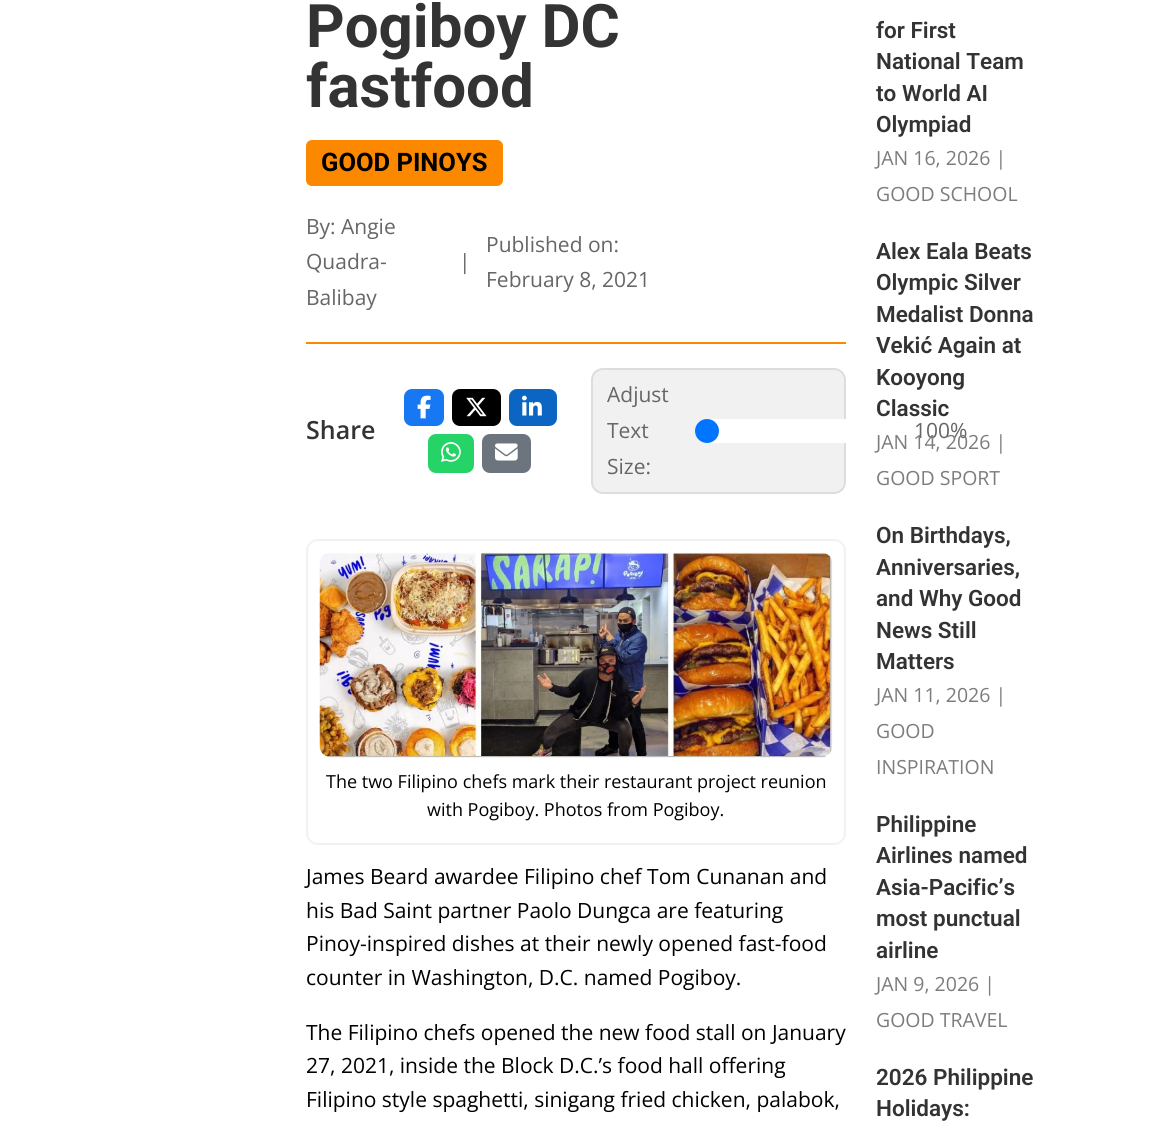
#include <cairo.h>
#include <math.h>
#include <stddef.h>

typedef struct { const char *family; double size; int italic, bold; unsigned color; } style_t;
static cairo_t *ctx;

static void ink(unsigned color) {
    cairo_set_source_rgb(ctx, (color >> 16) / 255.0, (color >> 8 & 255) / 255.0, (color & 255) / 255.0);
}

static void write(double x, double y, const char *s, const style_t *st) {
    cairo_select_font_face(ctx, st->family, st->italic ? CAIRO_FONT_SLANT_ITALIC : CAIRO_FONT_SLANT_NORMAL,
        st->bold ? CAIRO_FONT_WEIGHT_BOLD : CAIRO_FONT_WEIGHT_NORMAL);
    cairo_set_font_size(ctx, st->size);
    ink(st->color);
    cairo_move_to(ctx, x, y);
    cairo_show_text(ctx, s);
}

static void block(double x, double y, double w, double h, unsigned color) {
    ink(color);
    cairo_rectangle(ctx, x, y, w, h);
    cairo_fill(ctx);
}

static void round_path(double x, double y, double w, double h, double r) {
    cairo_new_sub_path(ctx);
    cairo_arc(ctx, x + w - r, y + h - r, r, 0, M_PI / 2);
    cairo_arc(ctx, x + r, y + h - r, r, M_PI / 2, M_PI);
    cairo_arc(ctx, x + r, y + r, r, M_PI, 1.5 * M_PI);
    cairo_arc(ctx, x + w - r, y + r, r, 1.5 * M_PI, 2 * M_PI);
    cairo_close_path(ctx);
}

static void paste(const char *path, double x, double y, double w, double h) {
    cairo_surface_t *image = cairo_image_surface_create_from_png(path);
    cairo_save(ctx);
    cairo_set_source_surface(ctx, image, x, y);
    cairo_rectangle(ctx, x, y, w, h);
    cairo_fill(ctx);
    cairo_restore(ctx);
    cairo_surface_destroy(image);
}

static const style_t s1 = {"Roboto", 60, 0, 1, 0x333333};
static const style_t s2 = {"Roboto", 25.5, 0, 1, 0x000000};
static const style_t s3 = {"Open Sans", 21, 0, 0, 0x666666};
static const style_t s4 = {"Open Sans SemiBold", 25, 0, 0, 0x333333};
static const style_t s5 = {"Open Sans", 18, 0, 0, 0x000000};
static const style_t s6 = {"Open Sans", 21, 0, 0, 0x000000};
static const style_t s7 = {"Roboto SemiBold", 22.5, 0, 0, 0x333333};
static const style_t s8 = {"Open Sans", 19.5, 0, 0, 0x7c7c7c};

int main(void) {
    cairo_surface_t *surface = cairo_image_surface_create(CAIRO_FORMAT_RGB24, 1151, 1122);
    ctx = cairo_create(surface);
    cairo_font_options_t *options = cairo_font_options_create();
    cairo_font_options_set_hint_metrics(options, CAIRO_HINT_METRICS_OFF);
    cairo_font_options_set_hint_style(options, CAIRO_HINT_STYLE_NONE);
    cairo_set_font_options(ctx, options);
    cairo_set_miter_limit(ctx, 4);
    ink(0xffffff);
    cairo_paint(ctx);
    write(306, 47, "Pogiboy DC", &s1);
    write(306, 107, "fastfood", &s1);
    ink(0xfc8800);
    round_path(306, 140, 197, 46, 6);
    cairo_fill(ctx);
    write(321, 171, "GOOD PINOYS", &s2);
    write(306, 234, "By: Angie", &s3);
    write(306, 269, "Quadra-", &s3);
    write(306, 305, "Balibay", &s3);
    write(459, 269, "|", &s3);
    write(486, 252, "Published on:", &s3);
    write(486, 287, "February 8, 2021", &s3);
    block(306, 342, 540, 2, 0xfc8800);
    write(306, 439, "Share", &s4);
    ink(0x1877f2);
    round_path(404, 389, 40, 37, 8);
    cairo_fill(ctx);
    paste("pic1.png", 417, 395, 14, 24);
    ink(0x000000);
    round_path(452, 389, 49, 37, 8);
    cairo_fill(ctx);
    paste("pic2.png", 466, 397, 21, 20);
    ink(0x0a66c2);
    round_path(509, 389, 48, 37, 8);
    cairo_fill(ctx);
    paste("pic3.png", 522, 395, 20, 21);
    ink(0x25d366);
    round_path(428, 434, 46, 39, 8);
    cairo_fill(ctx);
    paste("pic4.png", 441, 442, 20, 20);
    ink(0x6c757d);
    round_path(482, 434, 49, 39, 8);
    cairo_fill(ctx);
    paste("pic5.png", 495, 443, 23, 18);
    ink(0xf1f1f1);
    round_path(592, 369, 253, 124, 11);
    cairo_fill_preserve(ctx);
    ink(0xdddddd);
    cairo_stroke(ctx);
    write(607, 402, "Adjust", &s3);
    write(607, 438, "Text", &s3);
    write(607, 474, "Size:", &s3);
    ink(0xffffff);
    round_path(695, 419, 193, 24, 12);
    cairo_fill(ctx);
    ink(0x0075ff);
    cairo_arc(ctx, 707, 431, 12, 0, 2 * M_PI);
    cairo_fill(ctx);
    write(914, 438, "100%", &s3);
    round_path(307, 540, 538, 304, 11);
    ink(0xf1f1f1);
    cairo_stroke(ctx);
    paste("pic6.png", 319, 552, 514, 206);
    write(326, 788, "The two Filipino chefs mark their restaurant project reunion", &s5);
    write(427, 816, "with Pogiboy. Photos from Pogiboy.", &s5);
    write(306, 884, "James Beard awardee Filipino chef Tom Cunanan and", &s6);
    write(306, 918, "his Bad Saint partner Paolo Dungca are featuring", &s6);
    write(306, 951, "Pinoy-inspired dishes at their newly opened fast-food", &s6);
    write(306, 985, "counter in Washington, D.C. named Pogiboy.", &s6);
    write(306, 1040, "The Filipino chefs opened the new food stall on January", &s6);
    write(306, 1073, "27, 2021, inside the Block D.C.’s food hall offering", &s6);
    write(306, 1107, "Filipino style spaghetti, sinigang fried chicken, palabok,", &s6);
    write(876, 38, "for First", &s7);
    write(876, 69, "National Team", &s7);
    write(876, 101, "to World AI", &s7);
    write(876, 132, "Olympiad", &s7);
    write(876, 165, "JAN 16, 2026 |", &s8);
    write(876, 201, "GOOD SCHOOL", &s8);
    write(876, 259, "Alex Eala Beats", &s7);
    write(876, 290, "Olympic Silver", &s7);
    write(876, 322, "Medalist Donna", &s7);
    write(876, 353, "Vekić Again at", &s7);
    write(876, 385, "Kooyong", &s7);
    write(876, 416, "Classic", &s7);
    write(876, 449, "JAN 14, 2026 |", &s8);
    write(876, 485, "GOOD SPORT", &s8);
    write(876, 543, "On Birthdays,", &s7);
    write(876, 575, "Anniversaries,", &s7);
    write(876, 606, "and Why Good", &s7);
    write(876, 638, "News Still", &s7);
    write(876, 669, "Matters", &s7);
    write(876, 702, "JAN 11, 2026 |", &s8);
    write(876, 738, "GOOD", &s8);
    write(876, 774, "INSPIRATION", &s8);
    write(876, 832, "Philippine", &s7);
    write(876, 863, "Airlines named", &s7);
    write(876, 895, "Asia-Pacific’s", &s7);
    write(876, 926, "most punctual", &s7);
    write(876, 958, "airline", &s7);
    write(876, 991, "JAN 9, 2026 |", &s8);
    write(876, 1027, "GOOD TRAVEL", &s8);
    write(876, 1085, "2026 Philippine", &s7);
    write(876, 1116, "Holidays:", &s7);
    cairo_surface_write_to_png(surface, "screenshot.png");
    cairo_font_options_destroy(options);
    cairo_destroy(ctx);
    cairo_surface_destroy(surface);
    return 0;
}
